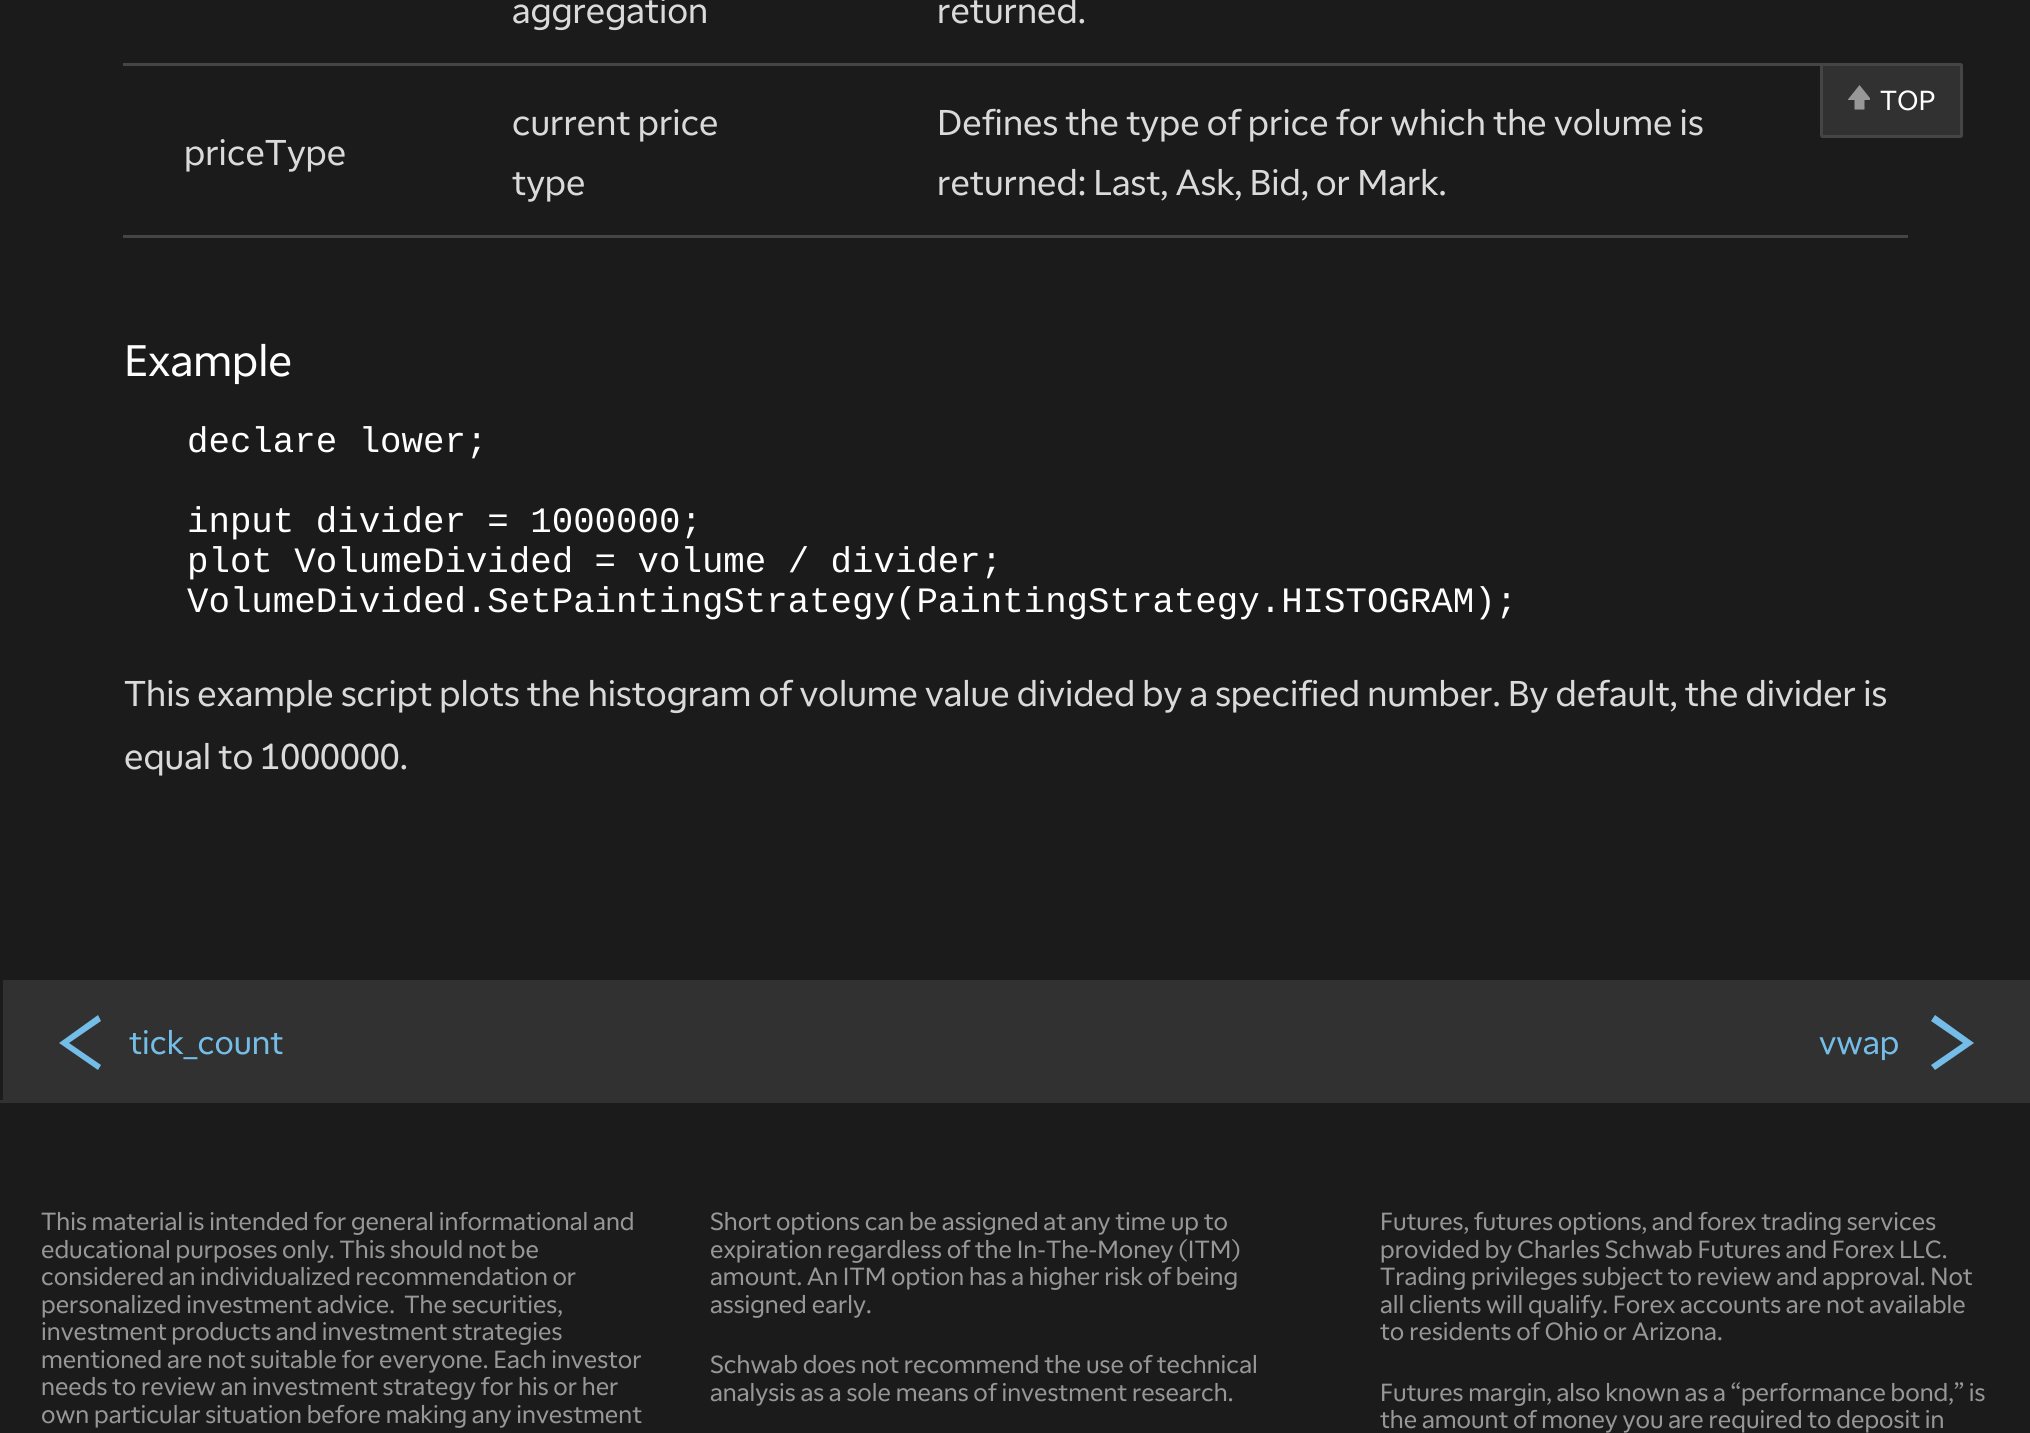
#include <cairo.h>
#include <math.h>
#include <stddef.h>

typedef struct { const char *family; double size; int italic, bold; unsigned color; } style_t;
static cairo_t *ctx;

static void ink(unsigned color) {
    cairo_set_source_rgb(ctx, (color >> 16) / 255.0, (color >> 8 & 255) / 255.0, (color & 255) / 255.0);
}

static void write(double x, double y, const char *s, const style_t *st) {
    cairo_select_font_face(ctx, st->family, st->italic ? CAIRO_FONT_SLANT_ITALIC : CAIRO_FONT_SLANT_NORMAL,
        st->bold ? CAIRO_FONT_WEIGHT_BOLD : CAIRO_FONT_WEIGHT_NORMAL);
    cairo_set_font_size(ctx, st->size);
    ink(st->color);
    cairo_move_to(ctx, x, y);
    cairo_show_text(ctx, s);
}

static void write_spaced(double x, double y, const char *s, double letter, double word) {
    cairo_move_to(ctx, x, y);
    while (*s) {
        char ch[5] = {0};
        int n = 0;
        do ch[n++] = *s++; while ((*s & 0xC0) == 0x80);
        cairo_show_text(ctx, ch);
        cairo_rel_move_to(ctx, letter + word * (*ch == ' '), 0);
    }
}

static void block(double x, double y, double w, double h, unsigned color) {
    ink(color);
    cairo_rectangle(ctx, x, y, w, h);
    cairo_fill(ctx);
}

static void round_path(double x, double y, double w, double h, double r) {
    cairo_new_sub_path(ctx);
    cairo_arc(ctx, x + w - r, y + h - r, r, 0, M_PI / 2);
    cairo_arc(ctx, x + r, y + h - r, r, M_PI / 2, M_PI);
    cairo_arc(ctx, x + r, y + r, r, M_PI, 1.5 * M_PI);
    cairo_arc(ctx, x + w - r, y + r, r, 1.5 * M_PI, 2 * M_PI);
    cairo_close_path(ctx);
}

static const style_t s1 = {"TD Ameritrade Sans", 35.75, 0, 0, 0xdadada};
static const style_t s2 = {"TD Ameritrade Sans", 44, 0, 0, 0xffffff};
static const style_t s3 = {"Liberation Mono", 35.75, 0, 0, 0xffffff};
static const style_t s4 = {"TD Ameritrade Sans", 33, 0, 0, 0x74bde8};
static const style_t s5 = {"TD Ameritrade Sans", 27.5, 0, 0, 0xffffff};
static const style_t s6 = {"TD Ameritrade Sans", 24.75, 0, 0, 0x979797};

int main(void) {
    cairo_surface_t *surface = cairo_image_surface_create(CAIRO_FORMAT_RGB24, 2030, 1433);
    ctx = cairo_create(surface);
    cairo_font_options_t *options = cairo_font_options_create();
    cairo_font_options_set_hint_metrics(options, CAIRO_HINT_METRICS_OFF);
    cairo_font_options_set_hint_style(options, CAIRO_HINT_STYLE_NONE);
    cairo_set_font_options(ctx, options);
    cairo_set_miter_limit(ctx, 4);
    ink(0x1b1b1b);
    cairo_paint(ctx);
    write(512, 23, "aggregation", &s1);
    block(123, 63, 1700, 3, 0x454545);
    write(937, 23, "returned.", &s1);
    write(184, 165, "priceType", &s1);
    write(512, 135, "current price", &s1);
    write(512, 195, "type", &s1);
    block(123, 235, 1785, 3, 0x454545);
    write(937, 135, "Defines the type of price for which the volume is", &s1);
    write(937, 195, "returned: Last, Ask, Bid, or Mark.", &s1);
    write(124, 376, "Example", &s2);
    write(187, 452, "declare lower;", &s3);
    write(187, 532, "input divider = 1000000;", &s3);
    write(187, 572, "plot VolumeDivided = volume / divider;", &s3);
    write(187, 612, "VolumeDivided.SetPaintingStrategy(PaintingStrategy.HISTOGRAM);", &s3);
    write(124, 706, "This example script plots the histogram of volume value divided by a specified number. By default, the divider is", &s1);
    write(124, 769, "equal to 1000000.", &s1);
    block(3, 980, 2027, 120, 0x313131);
    ink(0x74bde8);
    cairo_set_fill_rule(ctx, CAIRO_FILL_RULE_EVEN_ODD);
    cairo_new_path(ctx);
    cairo_move_to(ctx, 69, 1043);
    cairo_line_to(ctx, 101, 1065);
    cairo_line_to(ctx, 98, 1070);
    cairo_line_to(ctx, 59, 1043);
    cairo_line_to(ctx, 98, 1015);
    cairo_line_to(ctx, 101, 1021);
    cairo_close_path(ctx);
    cairo_fill(ctx);
    write(129, 1054, "tick_count", &s4);
    write(1819, 1054, "vwap", &s4);
    cairo_new_path(ctx);
    cairo_move_to(ctx, 1963, 1043);
    cairo_line_to(ctx, 1931, 1021);
    cairo_line_to(ctx, 1935, 1015);
    cairo_line_to(ctx, 1974, 1043);
    cairo_line_to(ctx, 1935, 1070);
    cairo_line_to(ctx, 1931, 1065);
    cairo_close_path(ctx);
    cairo_fill(ctx);
    ink(0x313131);
    round_path(1821.5, 64.5, 140, 72, 1);
    cairo_fill_preserve(ctx);
    ink(0x454545);
    cairo_set_line_width(ctx, 3);
    cairo_stroke(ctx);
    cairo_save(ctx);
    cairo_set_fill_rule(ctx, CAIRO_FILL_RULE_WINDING);
    cairo_rectangle(ctx, 1848, 85, 22, 25);
    cairo_clip(ctx);
    ink(0x979797);
    cairo_new_path(ctx);
    cairo_move_to(ctx, 1859.5, 85);
    cairo_line_to(ctx, 1871.5, 100);
    cairo_line_to(ctx, 1864.5, 100);
    cairo_line_to(ctx, 1864.5, 109.5);
    cairo_line_to(ctx, 1854.5, 109.5);
    cairo_line_to(ctx, 1854.5, 100);
    cairo_line_to(ctx, 1847.5, 100);
    cairo_close_path(ctx);
    cairo_fill(ctx);
    cairo_restore(ctx);
    write(1880, 110, "TOP", &s5);
    block(0, 1100, 2030, 3, 0x313131);
    cairo_set_font_size(ctx, 24.75);
    ink(0x979797);
    write_spaced(41, 1230, "This material is intended for general informational and", 0, -0.25);
    write_spaced(41, 1258, "educational purposes only. This should not be", 0, -0.25);
    write_spaced(41, 1285, "considered an individualized recommendation or", 0, -0.5);
    write_spaced(41, 1313, "personalized investment advice.  The securities,", 0, -0.25);
    write_spaced(41, 1340, "investment products and investment strategies", 0, -0.5);
    write_spaced(41, 1368, "mentioned are not suitable for everyone. Each investor", 0, -0.25);
    write_spaced(41, 1395, "needs to review an investment strategy for his or her", 0, -0.25);
    write_spaced(41, 1423, "own particular situation before making any investment", 0, -0.25);
    write_spaced(710, 1230, "Short options can be assigned at any time up to", 0, -0.25);
    write_spaced(710, 1258, "expiration regardless of the In-The-Money (ITM)", 0, -0.25);
    write_spaced(710, 1285, "amount. An ITM option has a higher risk of being", 0, -0.25);
    write(710, 1313, "assigned early.", &s6);
    write_spaced(710, 1373, "Schwab does not recommend the use of technical", 0, -0.25);
    write_spaced(710, 1401, "analysis as a sole means of investment research.", 0, -0.25);
    write_spaced(1380, 1230, "Futures, futures options, and forex trading services", 0, -0.25);
    write_spaced(1380, 1258, "provided by Charles Schwab Futures and Forex LLC.", 0, -0.25);
    write_spaced(1380, 1285, "Trading privileges subject to review and approval. Not", 0, -0.25);
    write_spaced(1380, 1313, "all clients will qualify. Forex accounts are not available", 0, -0.25);
    write(1380, 1340, "to residents of Ohio or Arizona.", &s6);
    write_spaced(1380, 1401, "Futures margin, also known as a “performance bond,” is", 0, -0.25);
    write_spaced(1380, 1428, "the amount of money you are required to deposit in", 0, -0.25);
    cairo_surface_write_to_png(surface, "screenshot.png");
    cairo_font_options_destroy(options);
    cairo_destroy(ctx);
    cairo_surface_destroy(surface);
    return 0;
}
